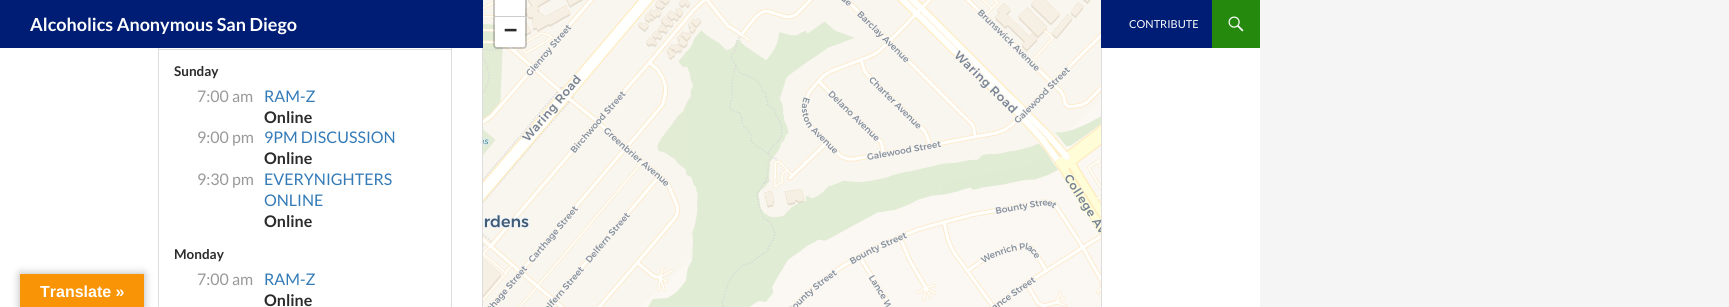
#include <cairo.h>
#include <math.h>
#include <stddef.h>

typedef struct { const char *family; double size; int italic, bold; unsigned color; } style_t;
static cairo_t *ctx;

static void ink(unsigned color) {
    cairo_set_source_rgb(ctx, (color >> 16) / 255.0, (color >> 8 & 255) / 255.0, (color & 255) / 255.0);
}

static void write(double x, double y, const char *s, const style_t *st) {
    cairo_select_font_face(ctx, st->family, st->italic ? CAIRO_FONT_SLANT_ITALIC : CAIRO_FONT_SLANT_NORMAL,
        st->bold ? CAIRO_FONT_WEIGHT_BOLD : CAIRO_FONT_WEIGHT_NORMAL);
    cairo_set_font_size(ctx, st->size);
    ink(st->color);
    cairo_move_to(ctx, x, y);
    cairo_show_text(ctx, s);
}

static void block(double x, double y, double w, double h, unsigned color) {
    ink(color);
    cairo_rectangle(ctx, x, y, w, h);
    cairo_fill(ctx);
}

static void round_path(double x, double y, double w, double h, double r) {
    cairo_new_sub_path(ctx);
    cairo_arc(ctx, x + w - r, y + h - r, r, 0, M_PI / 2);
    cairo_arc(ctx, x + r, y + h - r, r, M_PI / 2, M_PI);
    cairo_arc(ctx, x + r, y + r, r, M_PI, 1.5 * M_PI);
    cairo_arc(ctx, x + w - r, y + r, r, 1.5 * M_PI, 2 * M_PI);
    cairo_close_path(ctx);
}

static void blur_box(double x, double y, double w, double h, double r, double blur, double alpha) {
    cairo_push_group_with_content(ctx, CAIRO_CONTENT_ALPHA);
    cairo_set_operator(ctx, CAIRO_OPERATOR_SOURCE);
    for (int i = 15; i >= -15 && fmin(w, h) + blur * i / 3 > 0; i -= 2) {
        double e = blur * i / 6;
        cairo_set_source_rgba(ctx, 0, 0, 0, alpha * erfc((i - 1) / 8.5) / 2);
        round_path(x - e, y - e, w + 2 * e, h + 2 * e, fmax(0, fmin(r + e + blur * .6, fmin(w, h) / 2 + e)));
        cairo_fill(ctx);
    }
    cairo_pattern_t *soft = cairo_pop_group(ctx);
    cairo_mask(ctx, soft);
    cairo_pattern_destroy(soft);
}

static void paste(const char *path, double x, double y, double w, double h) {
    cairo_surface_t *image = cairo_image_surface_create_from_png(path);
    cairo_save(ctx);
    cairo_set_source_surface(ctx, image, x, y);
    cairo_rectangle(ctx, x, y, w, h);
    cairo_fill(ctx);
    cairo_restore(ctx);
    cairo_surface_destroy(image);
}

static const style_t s1 = {"Lato", 18, 0, 1, 0xffffff};
static const style_t s2 = {"Lato", 11, 0, 0, 0xffffff};
static const style_t s3 = {"DejaVu Sans Mono", 22, 0, 1, 0x2b2b2b};
static const style_t s4 = {"Lato", 13.5, 0, 1, 0x2b2b2b};
static const style_t s5 = {"Lato", 16, 0, 0, 0x999999};
static const style_t s6 = {"Lato", 16, 0, 0, 0x337ab7};
static const style_t s7 = {"Lato", 16, 0, 1, 0x2b2b2b};
static const style_t s8 = {"Liberation Sans", 16, 0, 1, 0xffffff};

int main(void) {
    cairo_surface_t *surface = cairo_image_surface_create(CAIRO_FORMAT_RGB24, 1729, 307);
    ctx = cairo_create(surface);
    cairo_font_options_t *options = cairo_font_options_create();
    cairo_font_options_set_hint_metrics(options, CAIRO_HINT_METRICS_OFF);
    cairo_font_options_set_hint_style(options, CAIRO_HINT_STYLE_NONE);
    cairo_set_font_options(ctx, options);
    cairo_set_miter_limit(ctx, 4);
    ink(0xf5f5f5);
    cairo_paint(ctx);
    block(0, 48, 1260, 259, 0xffffff);
    cairo_rectangle(ctx, 482.5, -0.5, 619, 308);
    ink(0xdddddd);
    cairo_set_line_width(ctx, 1);
    cairo_stroke(ctx);
    cairo_rectangle(ctx, 158.5, -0.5, 293, 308);
    cairo_stroke(ctx);
    block(0, 0, 1212, 48, 0x001d75);
    write(30, 31, "Alcoholics Anonymous San Diego", &s1);
    write(1129, 28, "CONTRIBUTE", &s2);
    block(1212, 0, 48, 48, 0x24890d);
    paste("pic1.png", 1228, 16, 16, 16);
    paste("pic2.png", 483, 0, 203, 9);
    paste("pic3.png", 686, 0, 256, 9);
    paste("pic4.png", 942, 0, 159, 9);
    paste("pic5.png", 483, 9, 203, 256);
    paste("pic6.png", 686, 9, 256, 256);
    paste("pic7.png", 942, 9, 159, 256);
    paste("pic8.png", 483, 265, 203, 42);
    paste("pic9.png", 686, 265, 256, 42);
    paste("pic10.png", 942, 265, 159, 42);
    round_path(494, -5, 32, 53, 3);
    cairo_set_source_rgba(ctx, 0, 0, 0, 0.2);
    cairo_set_line_width(ctx, 2);
    cairo_stroke(ctx);
    block(495, 0, 30, 16, 0xffffff);
    block(495, 16, 30, 1, 0xcccccc);
    ink(0xffffff);
    cairo_new_path(ctx);
    cairo_move_to(ctx, 495, 17);
    cairo_line_to(ctx, 525, 17);
    cairo_line_to(ctx, 525, 45);
    cairo_curve_to(ctx, 525, 46, 524, 47, 523, 47);
    cairo_line_to(ctx, 497, 47);
    cairo_curve_to(ctx, 496, 47, 495, 46, 495, 45);
    cairo_close_path(ctx);
    cairo_fill(ctx);
    write(504, 37, "−", &s3);
    block(159, 49, 292, 1, 0xdddddd);
    write(174, 76, "Sunday", &s4);
    write(197, 102, "7:00 am", &s5);
    write(264, 102, "RAM-Z", &s6);
    write(264, 123, "Online", &s7);
    write(197, 143, "9:00 pm", &s5);
    write(264, 143, "9PM DISCUSSION", &s6);
    write(264, 164, "Online", &s7);
    write(197, 185, "9:30 pm", &s5);
    write(264, 185, "EVERYNIGHTERS", &s6);
    write(264, 206, "ONLINE", &s6);
    write(264, 227, "Online", &s7);
    write(174, 259, "Monday", &s4);
    write(197, 285, "7:00 am", &s5);
    write(264, 285, "RAM-Z", &s6);
    write(264, 306, "Online", &s7);
    ink(0x000000);
    blur_box(20, 274, 124, 33, 0, 4.5, 0.3);
    block(20, 274, 124, 33, 0xf89406);
    write(40, 297, "Translate »", &s8);
    cairo_surface_write_to_png(surface, "screenshot.png");
    cairo_font_options_destroy(options);
    cairo_destroy(ctx);
    cairo_surface_destroy(surface);
    return 0;
}
